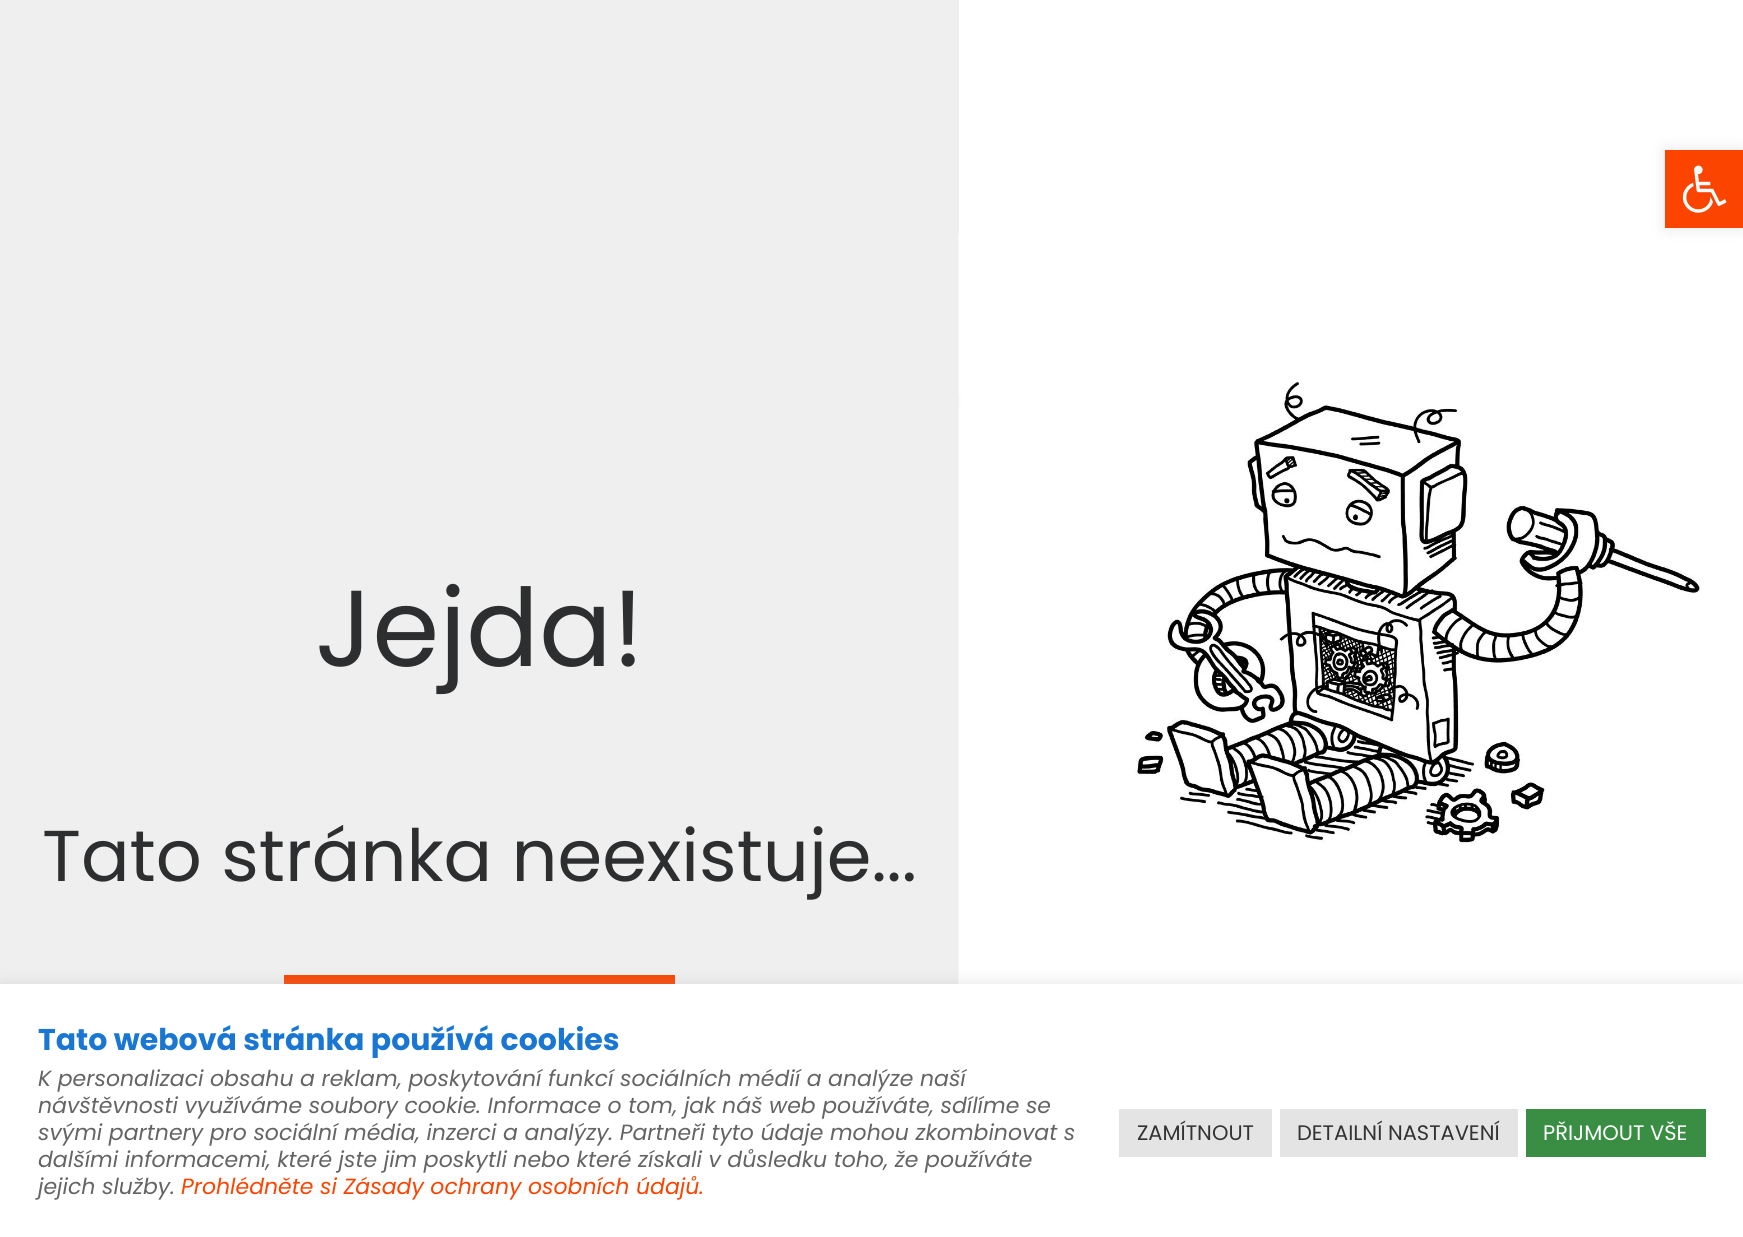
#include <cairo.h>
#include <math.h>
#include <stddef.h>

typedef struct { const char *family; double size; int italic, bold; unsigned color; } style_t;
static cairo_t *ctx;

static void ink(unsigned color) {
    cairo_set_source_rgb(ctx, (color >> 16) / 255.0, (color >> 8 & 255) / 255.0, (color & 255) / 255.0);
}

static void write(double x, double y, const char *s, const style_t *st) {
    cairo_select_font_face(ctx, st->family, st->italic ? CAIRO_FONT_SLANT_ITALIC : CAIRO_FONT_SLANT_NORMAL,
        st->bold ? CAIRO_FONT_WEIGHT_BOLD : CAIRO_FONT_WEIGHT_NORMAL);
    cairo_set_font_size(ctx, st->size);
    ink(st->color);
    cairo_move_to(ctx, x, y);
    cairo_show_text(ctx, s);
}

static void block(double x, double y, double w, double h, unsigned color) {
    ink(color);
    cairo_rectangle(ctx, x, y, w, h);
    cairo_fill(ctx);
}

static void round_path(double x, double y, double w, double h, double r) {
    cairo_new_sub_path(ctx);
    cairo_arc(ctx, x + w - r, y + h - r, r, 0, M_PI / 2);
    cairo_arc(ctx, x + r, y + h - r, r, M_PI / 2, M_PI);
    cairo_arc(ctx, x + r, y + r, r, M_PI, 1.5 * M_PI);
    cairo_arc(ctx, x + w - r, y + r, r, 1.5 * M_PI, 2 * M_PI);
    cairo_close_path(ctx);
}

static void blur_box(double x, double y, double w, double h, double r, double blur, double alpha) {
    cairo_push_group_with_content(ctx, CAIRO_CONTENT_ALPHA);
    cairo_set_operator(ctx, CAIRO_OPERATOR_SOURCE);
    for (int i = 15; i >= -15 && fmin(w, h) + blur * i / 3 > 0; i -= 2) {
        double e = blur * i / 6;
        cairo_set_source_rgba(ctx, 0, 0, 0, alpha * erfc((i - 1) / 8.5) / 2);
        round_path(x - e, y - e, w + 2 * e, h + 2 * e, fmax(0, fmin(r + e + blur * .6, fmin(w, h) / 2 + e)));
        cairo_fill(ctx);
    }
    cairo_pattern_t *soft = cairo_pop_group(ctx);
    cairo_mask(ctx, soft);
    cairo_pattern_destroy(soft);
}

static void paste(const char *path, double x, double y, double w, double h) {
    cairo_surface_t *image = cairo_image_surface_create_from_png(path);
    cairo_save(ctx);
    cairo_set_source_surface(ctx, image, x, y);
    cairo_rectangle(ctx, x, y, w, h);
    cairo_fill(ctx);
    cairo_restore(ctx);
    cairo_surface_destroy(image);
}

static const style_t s1 = {"Poppins", 108, 0, 0, 0x2d2e2f};
static const style_t s2 = {"Poppins", 72, 0, 0, 0x2d2e2f};
static const style_t s3 = {"Poppins", 30, 0, 1, 0x1976d2};
static const style_t s4 = {"Poppins", 22, 1, 0, 0x646464};
static const style_t s5 = {"Poppins", 22, 1, 0, 0xfb4400};
static const style_t s6 = {"Poppins", 21, 0, 0, 0x333333};
static const style_t s7 = {"Poppins", 21, 0, 0, 0xffffff};

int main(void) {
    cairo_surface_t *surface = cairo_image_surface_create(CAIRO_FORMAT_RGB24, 1743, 1237);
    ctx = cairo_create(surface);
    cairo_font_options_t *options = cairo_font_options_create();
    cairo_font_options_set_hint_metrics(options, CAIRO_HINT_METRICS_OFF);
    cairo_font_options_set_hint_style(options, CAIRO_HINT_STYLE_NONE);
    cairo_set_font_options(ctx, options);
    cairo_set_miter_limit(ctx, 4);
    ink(0xffffff);
    cairo_paint(ctx);
    block(0, 0, 959, 984, 0xefefef);
    paste("pic2.png", 958, 234, 743, 750);
    ink(0x000000);
    blur_box(1665, 150, 78, 78, 0, 7.5, 0.1);
    block(1665, 150, 78, 78, 0xfb4400);
    paste("pic1.png", 1682, 165, 45, 48);
    write(315, 666, "Jejda!", &s1);
    write(42, 881, "Tato stránka neexistuje...", &s2);
    block(284, 975, 391, 9, 0xfb4400);
    ink(0xacabab);
    blur_box(0, 983, 1743, 253, 0, 7.5, 0.3);
    block(0, 984, 1743, 253, 0xffffff);
    write(38, 1050, "Tato webová stránka používá cookies", &s3);
    write(38, 1086, "K personalizaci obsahu a reklam, poskytování funkcí sociálních médií a analýze naší", &s4);
    write(38, 1113, "návštěvnosti využíváme soubory cookie. Informace o tom, jak náš web používáte, sdílíme se", &s4);
    write(38, 1140, "svými partnery pro sociální média, inzerci a analýzy. Partneři tyto údaje mohou zkombinovat s", &s4);
    write(38, 1167, "dalšími informacemi, které jste jim poskytli nebo které získali v důsledku toho, že používáte", &s4);
    write(38, 1194, "jejich služby.", &s4);
    write(181, 1194, "Prohlédněte si Zásady ochrany osobních údajů.", &s5);
    block(1119, 1109, 153, 48, 0xe4e4e4);
    write(1137, 1140, "ZAMÍTNOUT", &s6);
    block(1280, 1109, 238, 48, 0xe4e4e4);
    write(1297, 1140, "DETAILNÍ NASTAVENÍ", &s6);
    block(1526, 1109, 180, 48, 0x398e43);
    write(1543, 1140, "PŘIJMOUT VŠE", &s7);
    cairo_surface_write_to_png(surface, "screenshot.png");
    cairo_font_options_destroy(options);
    cairo_destroy(ctx);
    cairo_surface_destroy(surface);
    return 0;
}
